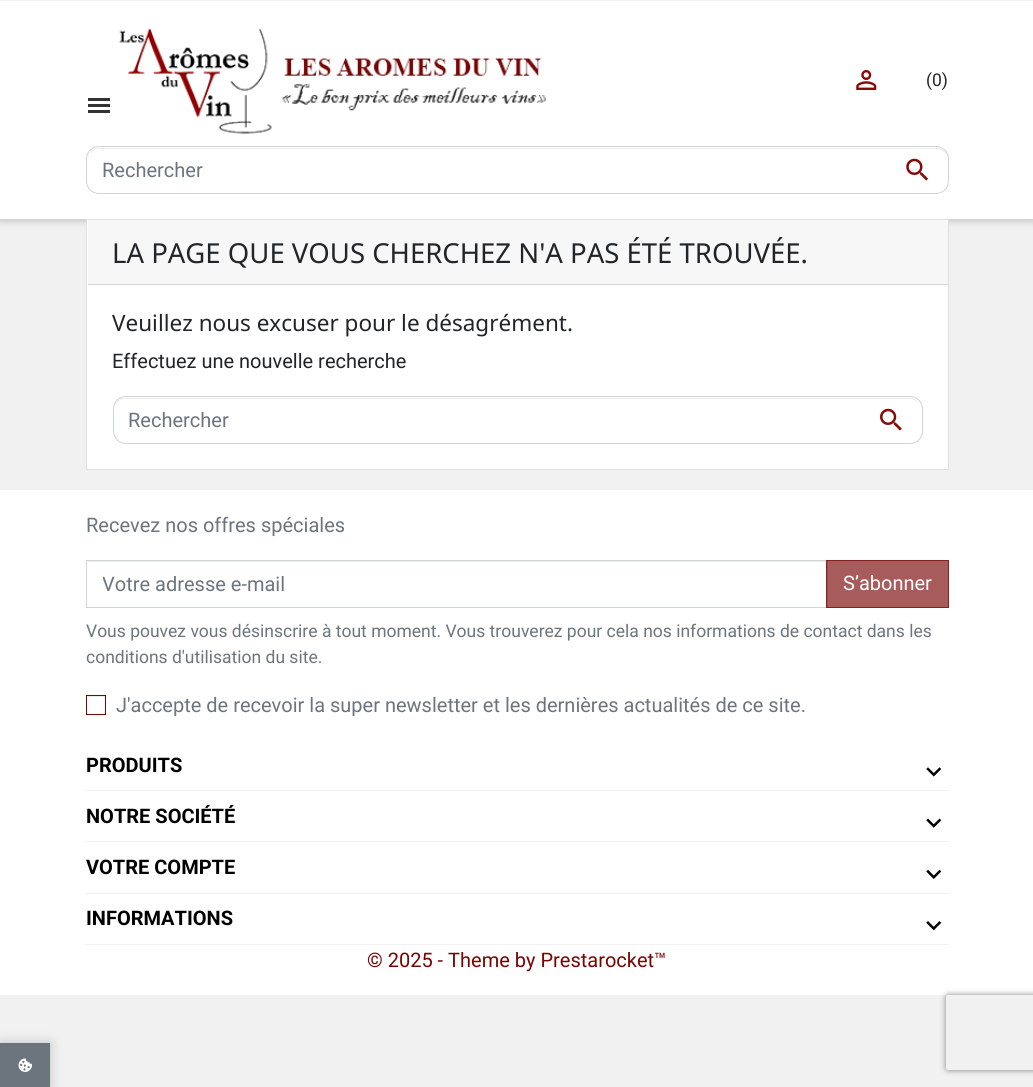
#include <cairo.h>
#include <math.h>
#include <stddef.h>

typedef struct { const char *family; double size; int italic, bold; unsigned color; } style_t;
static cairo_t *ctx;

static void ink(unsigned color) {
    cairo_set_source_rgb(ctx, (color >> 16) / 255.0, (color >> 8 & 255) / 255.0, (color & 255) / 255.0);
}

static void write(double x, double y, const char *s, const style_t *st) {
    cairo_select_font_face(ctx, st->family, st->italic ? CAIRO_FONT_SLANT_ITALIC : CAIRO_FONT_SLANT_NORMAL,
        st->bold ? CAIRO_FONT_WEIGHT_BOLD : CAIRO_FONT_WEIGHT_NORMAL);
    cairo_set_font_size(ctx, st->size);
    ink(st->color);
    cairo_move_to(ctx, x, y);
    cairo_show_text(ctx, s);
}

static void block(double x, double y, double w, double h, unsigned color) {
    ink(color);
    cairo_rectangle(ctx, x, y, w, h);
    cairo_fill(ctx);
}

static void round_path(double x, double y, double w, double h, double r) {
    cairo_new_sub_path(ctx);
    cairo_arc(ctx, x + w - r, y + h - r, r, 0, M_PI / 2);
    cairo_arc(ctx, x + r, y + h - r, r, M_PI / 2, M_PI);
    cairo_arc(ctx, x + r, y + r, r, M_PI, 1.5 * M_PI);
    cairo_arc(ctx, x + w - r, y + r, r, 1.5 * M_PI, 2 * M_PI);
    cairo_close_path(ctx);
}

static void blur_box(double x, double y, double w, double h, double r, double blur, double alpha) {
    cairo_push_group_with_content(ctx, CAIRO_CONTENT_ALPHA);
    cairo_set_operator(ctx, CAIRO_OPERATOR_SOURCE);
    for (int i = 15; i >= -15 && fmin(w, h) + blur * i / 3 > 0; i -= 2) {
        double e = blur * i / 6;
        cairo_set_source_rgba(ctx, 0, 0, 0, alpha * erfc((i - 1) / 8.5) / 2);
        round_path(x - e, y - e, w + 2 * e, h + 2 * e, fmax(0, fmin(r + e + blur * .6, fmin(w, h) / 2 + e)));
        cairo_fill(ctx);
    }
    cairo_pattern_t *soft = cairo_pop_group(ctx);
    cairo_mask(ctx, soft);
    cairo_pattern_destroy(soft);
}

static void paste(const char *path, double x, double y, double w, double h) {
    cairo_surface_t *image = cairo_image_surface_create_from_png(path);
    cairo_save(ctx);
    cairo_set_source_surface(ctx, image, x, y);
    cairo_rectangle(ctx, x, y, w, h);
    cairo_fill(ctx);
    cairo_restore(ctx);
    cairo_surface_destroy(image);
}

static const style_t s1 = {"Roboto", 17.5, 0, 0, 0x212529};
static const style_t s2 = {"Roboto", 20, 0, 0, 0x6c757d};
static const style_t s3 = {"Noto Sans", 27.5, 0, 0, 0x212529};
static const style_t s4 = {"Noto Sans", 22.5, 0, 0, 0x212529};
static const style_t s5 = {"Roboto", 20, 0, 0, 0x212529};
static const style_t s6 = {"Roboto", 20, 0, 0, 0xffffff};
static const style_t s7 = {"Roboto", 17.5, 0, 0, 0x6c757d};
static const style_t s8 = {"Roboto", 20, 0, 1, 0x000000};
static const style_t s9 = {"Roboto", 20, 0, 0, 0x780403};

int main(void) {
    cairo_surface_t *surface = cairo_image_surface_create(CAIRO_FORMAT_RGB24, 1033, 1087);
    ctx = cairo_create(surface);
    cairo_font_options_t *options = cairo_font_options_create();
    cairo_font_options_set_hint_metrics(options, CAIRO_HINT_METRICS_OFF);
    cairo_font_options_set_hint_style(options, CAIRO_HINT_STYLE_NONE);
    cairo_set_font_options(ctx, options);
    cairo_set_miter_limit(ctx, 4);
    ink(0xf1f1f1);
    cairo_paint(ctx);
    ink(0x000000);
    blur_box(0, 3, 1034, 218, 0, 4, 0.2);
    block(0, 1, 1033, 218, 0xffffff);
    block(0, 0, 1033, 1, 0xf1f1f1);
    block(88, 98, 22, 3, 0x333333);
    block(88, 104, 22, 3, 0x333333);
    block(88, 110, 22, 3, 0x333333);
    paste("pic1.png", 119, 28, 428, 106);
    paste("pic2.png", 856, 70, 21, 20);
    write(926, 86, "(0)", &s1);
    ink(0xececec);
    cairo_new_path(ctx);
    cairo_move_to(ctx, 99, 149);
    cairo_line_to(ctx, 936, 149);
    cairo_curve_to(ctx, 942, 149, 948, 154, 948, 160);
    cairo_line_to(ctx, 948, 159);
    cairo_curve_to(ctx, 948, 153, 943, 148, 937, 148);
    cairo_line_to(ctx, 99, 148);
    cairo_curve_to(ctx, 93, 148, 88, 153, 88, 159);
    cairo_line_to(ctx, 88, 160);
    cairo_curve_to(ctx, 88, 154, 93, 149, 99, 149);
    cairo_close_path(ctx);
    cairo_fill(ctx);
    round_path(86.5, 146.5, 862, 47, 12.5);
    ink(0xced4da);
    cairo_set_line_width(ctx, 1);
    cairo_stroke(ctx);
    write(102, 177, "Rechercher", &s2);
    paste("pic3.png", 906, 158, 22, 23);
    ink(0xffffff);
    cairo_rectangle(ctx, 86.5, 219.5, 862, 250);
    cairo_fill_preserve(ctx);
    ink(0xdfdfdf);
    cairo_stroke(ctx);
    block(88, 220, 860, 64, 0xf7f7f7);
    block(88, 284, 860, 1, 0xd8d8d8);
    write(112, 263, "LA PAGE QUE VOUS CHERCHEZ N'A PAS ÉTÉ TROUVÉE.", &s3);
    write(112, 331, "Veuillez nous excuser pour le désagrément.", &s4);
    write(112, 368, "Effectuez une nouvelle recherche", &s5);
    ink(0xececec);
    cairo_new_path(ctx);
    cairo_move_to(ctx, 125, 399);
    cairo_line_to(ctx, 910, 399);
    cairo_curve_to(ctx, 916, 399, 921, 404, 921, 410);
    cairo_curve_to(ctx, 921, 404, 917, 398, 910, 398);
    cairo_line_to(ctx, 125, 398);
    cairo_curve_to(ctx, 118, 398, 114, 404, 114, 410);
    cairo_curve_to(ctx, 114, 404, 119, 399, 125, 399);
    cairo_close_path(ctx);
    cairo_fill(ctx);
    round_path(113.5, 396.5, 809, 47, 12.5);
    ink(0xced4da);
    cairo_stroke(ctx);
    write(128, 427, "Rechercher", &s2);
    paste("pic4.png", 880, 408, 22, 23);
    block(0, 490, 1033, 505, 0xffffff);
    write(86, 532, "Recevez nos offres spéciales", &s2);
    block(88, 561, 738, 1, 0xececec);
    cairo_rectangle(ctx, 86.5, 560.5, 741, 47);
    ink(0xced4da);
    cairo_stroke(ctx);
    cairo_save(ctx);
    cairo_rectangle(ctx, 103, 573, 708, 23);
    cairo_clip(ctx);
    write(102, 591, "Votre adresse e-mail", &s2);
    cairo_restore(ctx);
    cairo_set_source_rgba(ctx, 0.471, 0.016, 0.012, 0.65);
    cairo_rectangle(ctx, 826, 560, 123, 48);
    cairo_fill(ctx);
    cairo_rectangle(ctx, 826.5, 560.5, 122, 47);
    cairo_stroke(ctx);
    write(843, 590, "S’abonner", &s6);
    write(86, 637, "Vous pouvez vous désinscrire à tout moment. Vous trouverez pour cela nos informations de contact dans les", &s7);
    write(86, 663, "conditions d'utilisation du site.", &s7);
    block(88, 696, 17, 1, 0xececec);
    cairo_rectangle(ctx, 86.5, 695.5, 19, 19);
    ink(0x780403);
    cairo_stroke(ctx);
    write(116, 712, "J'accepte de recevoir la super newsletter et les dernières actualités de ce site.", &s2);
    block(86, 790, 863, 1, 0xf1f1f1);
    write(86, 772, "PRODUITS", &s8);
    paste("pic5.png", 926, 767, 16, 10);
    block(86, 841, 863, 1, 0xf1f1f1);
    write(86, 823, "NOTRE SOCIÉTÉ", &s8);
    paste("pic6.png", 926, 818, 16, 10);
    block(86, 893, 863, 1, 0xf1f1f1);
    write(86, 874, "VOTRE COMPTE", &s8);
    paste("pic7.png", 926, 869, 16, 10);
    block(86, 944, 863, 1, 0xf1f1f1);
    write(86, 925, "INFORMATIONS", &s8);
    paste("pic8.png", 926, 921, 16, 10);
    ink(0x000000);
    blur_box(0, 1043, 50, 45, 0, 6, 0.2);
    block(0, 1043, 50, 44, 0x6c757d);
    paste("pic9.png", 18, 1058, 14, 14);
    write(367, 967, "© 2025 - Theme by Prestarocket™", &s9);
    cairo_save(ctx);
    cairo_set_fill_rule(ctx, CAIRO_FILL_RULE_EVEN_ODD);
    cairo_new_path(ctx);
    cairo_move_to(ctx, 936, 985);
    cairo_line_to(ctx, 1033, 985);
    cairo_line_to(ctx, 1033, 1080);
    cairo_line_to(ctx, 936, 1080);
    cairo_close_path(ctx);
    cairo_move_to(ctx, 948.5, 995);
    cairo_line_to(ctx, 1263.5, 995);
    cairo_curve_to(ctx, 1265, 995, 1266, 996, 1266, 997.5);
    cairo_line_to(ctx, 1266, 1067.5);
    cairo_curve_to(ctx, 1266, 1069, 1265, 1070, 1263.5, 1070);
    cairo_line_to(ctx, 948.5, 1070);
    cairo_curve_to(ctx, 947, 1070, 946, 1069, 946, 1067.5);
    cairo_line_to(ctx, 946, 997.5);
    cairo_curve_to(ctx, 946, 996, 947, 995, 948.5, 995);
    cairo_close_path(ctx);
    cairo_clip(ctx);
    ink(0x808080);
    blur_box(946, 995, 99, 75, 2.5, 3, 1);
    cairo_restore(ctx);
    cairo_surface_write_to_png(surface, "screenshot.png");
    cairo_font_options_destroy(options);
    cairo_destroy(ctx);
    cairo_surface_destroy(surface);
    return 0;
}
